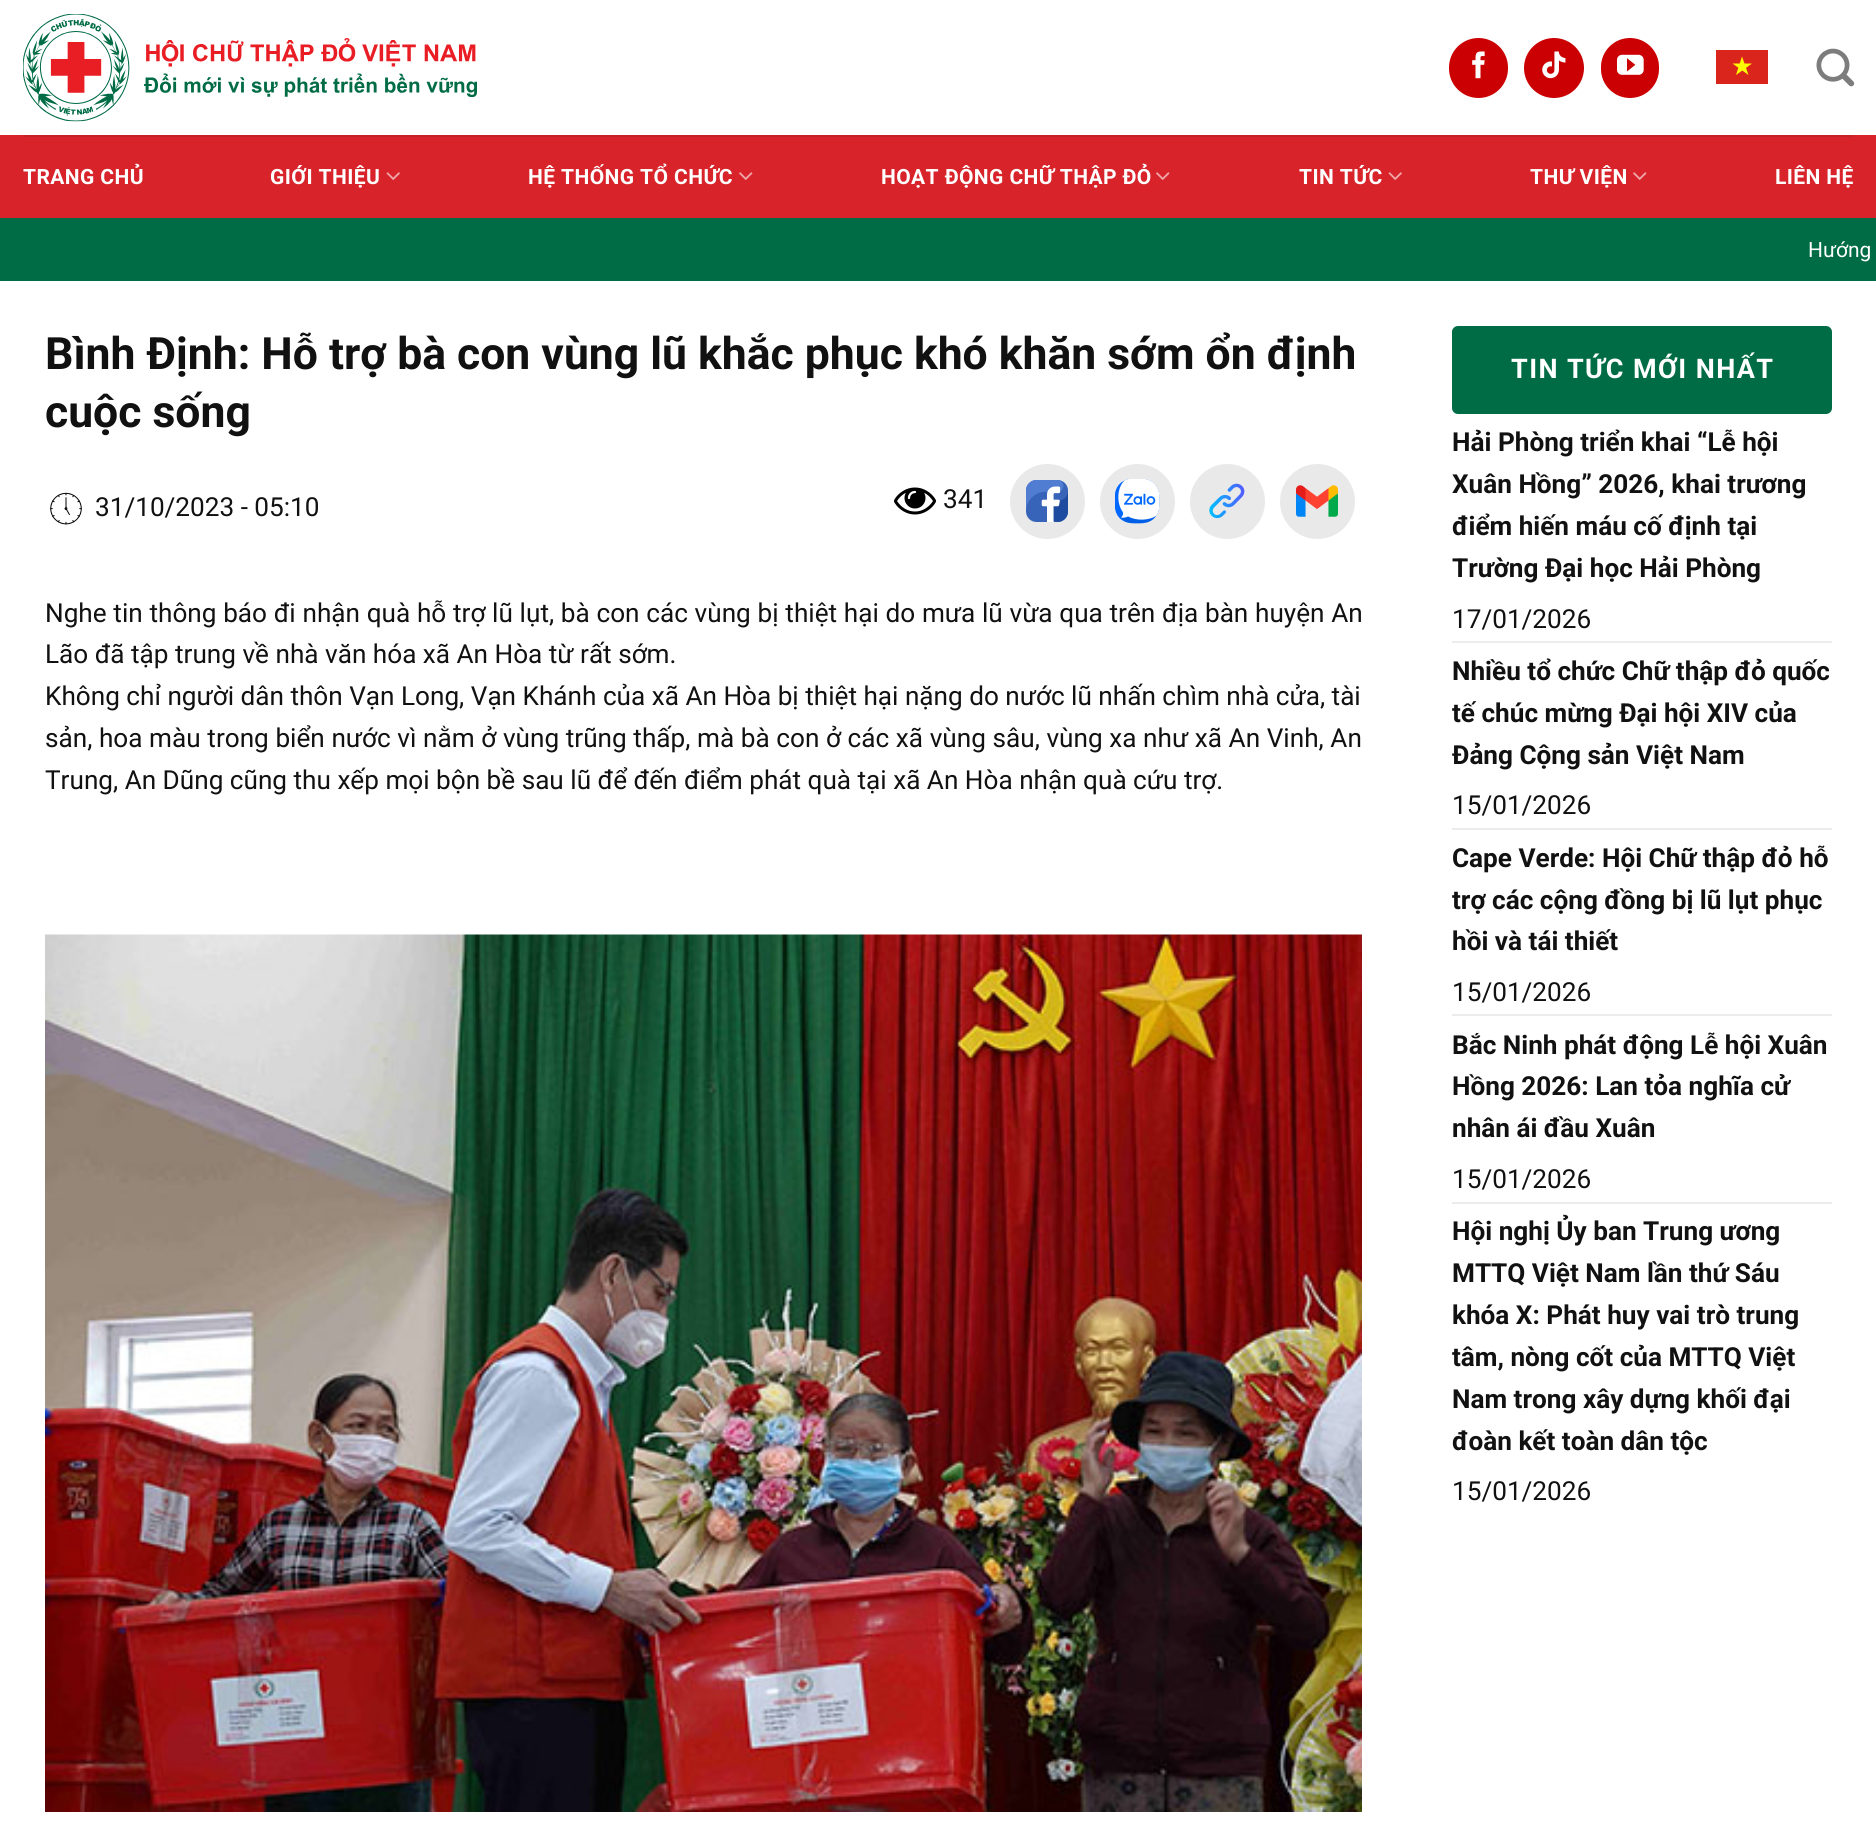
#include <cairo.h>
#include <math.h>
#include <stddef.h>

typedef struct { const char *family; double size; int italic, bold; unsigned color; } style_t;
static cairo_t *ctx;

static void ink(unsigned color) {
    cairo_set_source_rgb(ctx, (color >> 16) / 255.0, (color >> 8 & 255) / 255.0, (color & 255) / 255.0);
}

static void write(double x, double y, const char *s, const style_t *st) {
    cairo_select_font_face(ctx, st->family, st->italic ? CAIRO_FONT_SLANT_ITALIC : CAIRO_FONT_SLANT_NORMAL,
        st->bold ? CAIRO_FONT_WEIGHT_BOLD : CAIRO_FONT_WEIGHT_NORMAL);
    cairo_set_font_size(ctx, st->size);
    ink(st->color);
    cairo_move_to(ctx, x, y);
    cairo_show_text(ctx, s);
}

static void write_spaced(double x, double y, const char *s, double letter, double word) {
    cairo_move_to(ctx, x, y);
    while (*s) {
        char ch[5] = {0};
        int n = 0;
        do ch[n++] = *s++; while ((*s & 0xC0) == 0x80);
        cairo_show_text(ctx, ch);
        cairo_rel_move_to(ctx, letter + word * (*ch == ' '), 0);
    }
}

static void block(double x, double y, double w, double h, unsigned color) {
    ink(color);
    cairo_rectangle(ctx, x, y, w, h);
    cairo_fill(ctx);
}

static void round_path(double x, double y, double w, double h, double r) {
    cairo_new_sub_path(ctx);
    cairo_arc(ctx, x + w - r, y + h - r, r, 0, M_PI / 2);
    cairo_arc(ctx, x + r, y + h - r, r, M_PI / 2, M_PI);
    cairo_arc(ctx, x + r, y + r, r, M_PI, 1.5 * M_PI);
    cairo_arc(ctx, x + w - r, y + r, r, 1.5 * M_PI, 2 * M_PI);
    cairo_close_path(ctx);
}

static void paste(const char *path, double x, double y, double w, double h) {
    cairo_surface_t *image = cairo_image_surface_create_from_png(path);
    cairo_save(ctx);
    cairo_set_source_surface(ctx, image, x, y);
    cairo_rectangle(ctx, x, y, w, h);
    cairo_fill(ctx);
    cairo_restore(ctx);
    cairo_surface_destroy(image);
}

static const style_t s1 = {"Roboto", 21, 0, 0, 0xffffff};
static const style_t s2 = {"Roboto", 44.5, 0, 1, 0x111111};
static const style_t s3 = {"Roboto", 26.15, 0, 0, 0x111111};
static const style_t s4 = {"Roboto", 26.15, 0, 1, 0x111111};

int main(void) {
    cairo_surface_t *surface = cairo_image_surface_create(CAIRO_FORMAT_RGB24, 1876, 1830);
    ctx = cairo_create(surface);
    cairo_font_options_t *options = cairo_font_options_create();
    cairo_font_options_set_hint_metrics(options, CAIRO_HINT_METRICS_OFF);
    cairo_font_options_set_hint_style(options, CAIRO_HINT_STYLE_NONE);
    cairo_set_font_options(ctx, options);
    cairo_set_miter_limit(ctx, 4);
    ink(0xffffff);
    cairo_paint(ctx);
    paste("pic1.png", 23, 14, 454, 108);
    ink(0xca0002);
    round_path(1449, 38, 59, 60, 29.5);
    cairo_fill(ctx);
    paste("pic2.png", 1472, 51, 13, 28);
    cairo_arc(ctx, 1554, 68, 30, 0, 2 * M_PI);
    cairo_fill(ctx);
    paste("pic3.png", 1542, 51, 24, 28);
    round_path(1601, 38, 58, 60, 29);
    cairo_fill(ctx);
    paste("pic4.png", 1617, 54, 27, 21);
    block(1716, 50, 52, 34, 0xda251d);
    ink(0xffff00);
    cairo_new_path(ctx);
    cairo_move_to(ctx, 1742, 56.5);
    cairo_line_to(ctx, 1736, 75);
    cairo_line_to(ctx, 1752, 63.5);
    cairo_line_to(ctx, 1732.5, 63.5);
    cairo_line_to(ctx, 1748.5, 75);
    cairo_close_path(ctx);
    cairo_fill(ctx);
    paste("pic5.png", 1816, 48, 39, 39);
    block(0, 135, 1876, 83, 0xd8232a);
    block(23, 135, 1831, 2, 0xc42128);
    cairo_select_font_face(ctx, "Roboto", CAIRO_FONT_SLANT_NORMAL, CAIRO_FONT_WEIGHT_BOLD);
    cairo_set_font_size(ctx, 21);
    ink(0xffffff);
    write_spaced(23, 184, "TRANG CHỦ", 0.4, 0);
    write_spaced(270, 184, "GIỚI THIỆU", 0.4, 0);
    paste("pic6.png", 386, 172, 14, 8);
    write_spaced(528, 184, "HỆ THỐNG TỔ CHỨC", 0.4, 0);
    paste("pic7.png", 739, 172, 14, 8);
    write_spaced(881, 184, "HOẠT ĐỘNG CHỮ THẬP ĐỎ", 0.4, 0);
    paste("pic7.png", 1156, 172, 14, 8);
    write_spaced(1299, 184, "TIN TỨC", 0.4, 0);
    paste("pic6.png", 1388, 172, 14, 8);
    write_spaced(1530, 184, "THƯ VIỆN", 0.4, 0);
    paste("pic7.png", 1633, 172, 14, 8);
    write_spaced(1775, 184, "LIÊN HỆ", 0.4, 0);
    block(0, 218, 1876, 63, 0x006c45);
    write(1808, 257, "Hướng", &s1);
    write(45, 369, "Bình Định: Hỗ trợ bà con vùng lũ khắc phục khó khăn sớm ổn định", &s2);
    write(45, 427, "cuộc sống", &s2);
    paste("pic8.png", 50, 492, 32, 33);
    write(95, 516, "31/10/2023 - 05:10", &s3);
    paste("pic9.png", 894, 487, 42, 28);
    write(943, 508, "341", &s3);
    ink(0xe9e9e9);
    cairo_new_path(ctx);
    cairo_arc(ctx, 1047.5, 501.5, 37.5, 0, 2 * M_PI);
    cairo_fill(ctx);
    paste("pic10.png", 1026, 480, 42, 42);
    cairo_arc(ctx, 1137.5, 501.5, 37.5, 0, 2 * M_PI);
    cairo_fill(ctx);
    paste("pic11.png", 1115, 479, 45, 45);
    cairo_arc(ctx, 1227.5, 501.5, 37.5, 0, 2 * M_PI);
    cairo_fill(ctx);
    paste("pic12.png", 1209, 483, 36, 36);
    cairo_arc(ctx, 1317.5, 501.5, 37.5, 0, 2 * M_PI);
    cairo_fill(ctx);
    paste("pic13.png", 1296, 485, 42, 32);
    ink(0x111111);
    write_spaced(45, 622, "Nghe tin thông báo đi nhận quà hỗ trợ lũ lụt, bà con các vùng bị thiệt hại do mưa lũ vừa qua trên địa bàn huyện An", 0, 0.25);
    write(45, 663, "Lão đã tập trung về nhà văn hóa xã An Hòa từ rất sớm.", &s3);
    write(45, 705, "Không chỉ người dân thôn Vạn Long, Vạn Khánh của xã An Hòa bị thiệt hại nặng do nước lũ nhấn chìm nhà cửa, tài", &s3);
    write_spaced(45, 747, "sản, hoa màu trong biển nước vì nằm ở vùng trũng thấp, mà bà con ở các xã vùng sâu, vùng xa như xã An Vinh, An", 0, 0.15);
    write(45, 789, "Trung, An Dũng cũng thu xếp mọi bộn bề sau lũ để đến điểm phát quà tại xã An Hòa nhận quà cứu trợ.", &s3);
    paste("pic14.png", 45, 934, 1317, 878);
    ink(0x006c45);
    round_path(1452, 326, 380, 88, 6);
    cairo_fill(ctx);
    cairo_select_font_face(ctx, "Roboto", CAIRO_FONT_SLANT_NORMAL, CAIRO_FONT_WEIGHT_BOLD);
    cairo_set_font_size(ctx, 27);
    ink(0xffffff);
    write_spaced(1511, 378, "TIN TỨC MỚI NHẤT", 1.4, 0);
    write(1452, 451, "Hải Phòng triển khai “Lễ hội", &s4);
    write(1452, 493, "Xuân Hồng” 2026, khai trương", &s4);
    write(1452, 535, "điểm hiến máu cố định tại", &s4);
    write(1452, 577, "Trường Đại học Hải Phòng", &s4);
    write(1452, 628, "17/01/2026", &s3);
    block(1452, 641, 380, 2, 0xececec);
    write(1452, 680, "Nhiều tổ chức Chữ thập đỏ quốc", &s4);
    write(1452, 722, "tế chúc mừng Đại hội XIV của", &s4);
    write(1452, 764, "Đảng Cộng sản Việt Nam", &s4);
    write(1452, 814, "15/01/2026", &s3);
    block(1452, 828, 380, 2, 0xececec);
    write(1452, 867, "Cape Verde: Hội Chữ thập đỏ hỗ", &s4);
    write(1452, 909, "trợ các cộng đồng bị lũ lụt phục", &s4);
    write(1452, 950, "hồi và tái thiết", &s4);
    write(1452, 1001, "15/01/2026", &s3);
    block(1452, 1014, 380, 2, 0xececec);
    write(1452, 1054, "Bắc Ninh phát động Lễ hội Xuân", &s4);
    write(1452, 1095, "Hồng 2026: Lan tỏa nghĩa cử", &s4);
    write(1452, 1137, "nhân ái đầu Xuân", &s4);
    write(1452, 1188, "15/01/2026", &s3);
    block(1452, 1202, 380, 2, 0xececec);
    write(1452, 1240, "Hội nghị Ủy ban Trung ương", &s4);
    write(1452, 1282, "MTTQ Việt Nam lần thứ Sáu", &s4);
    write(1452, 1324, "khóa X: Phát huy vai trò trung", &s4);
    write(1452, 1366, "tâm, nòng cốt của MTTQ Việt", &s4);
    write(1452, 1408, "Nam trong xây dựng khối đại", &s4);
    write(1452, 1450, "đoàn kết toàn dân tộc", &s4);
    write(1452, 1500, "15/01/2026", &s3);
    cairo_surface_write_to_png(surface, "screenshot.png");
    cairo_font_options_destroy(options);
    cairo_destroy(ctx);
    cairo_surface_destroy(surface);
    return 0;
}
